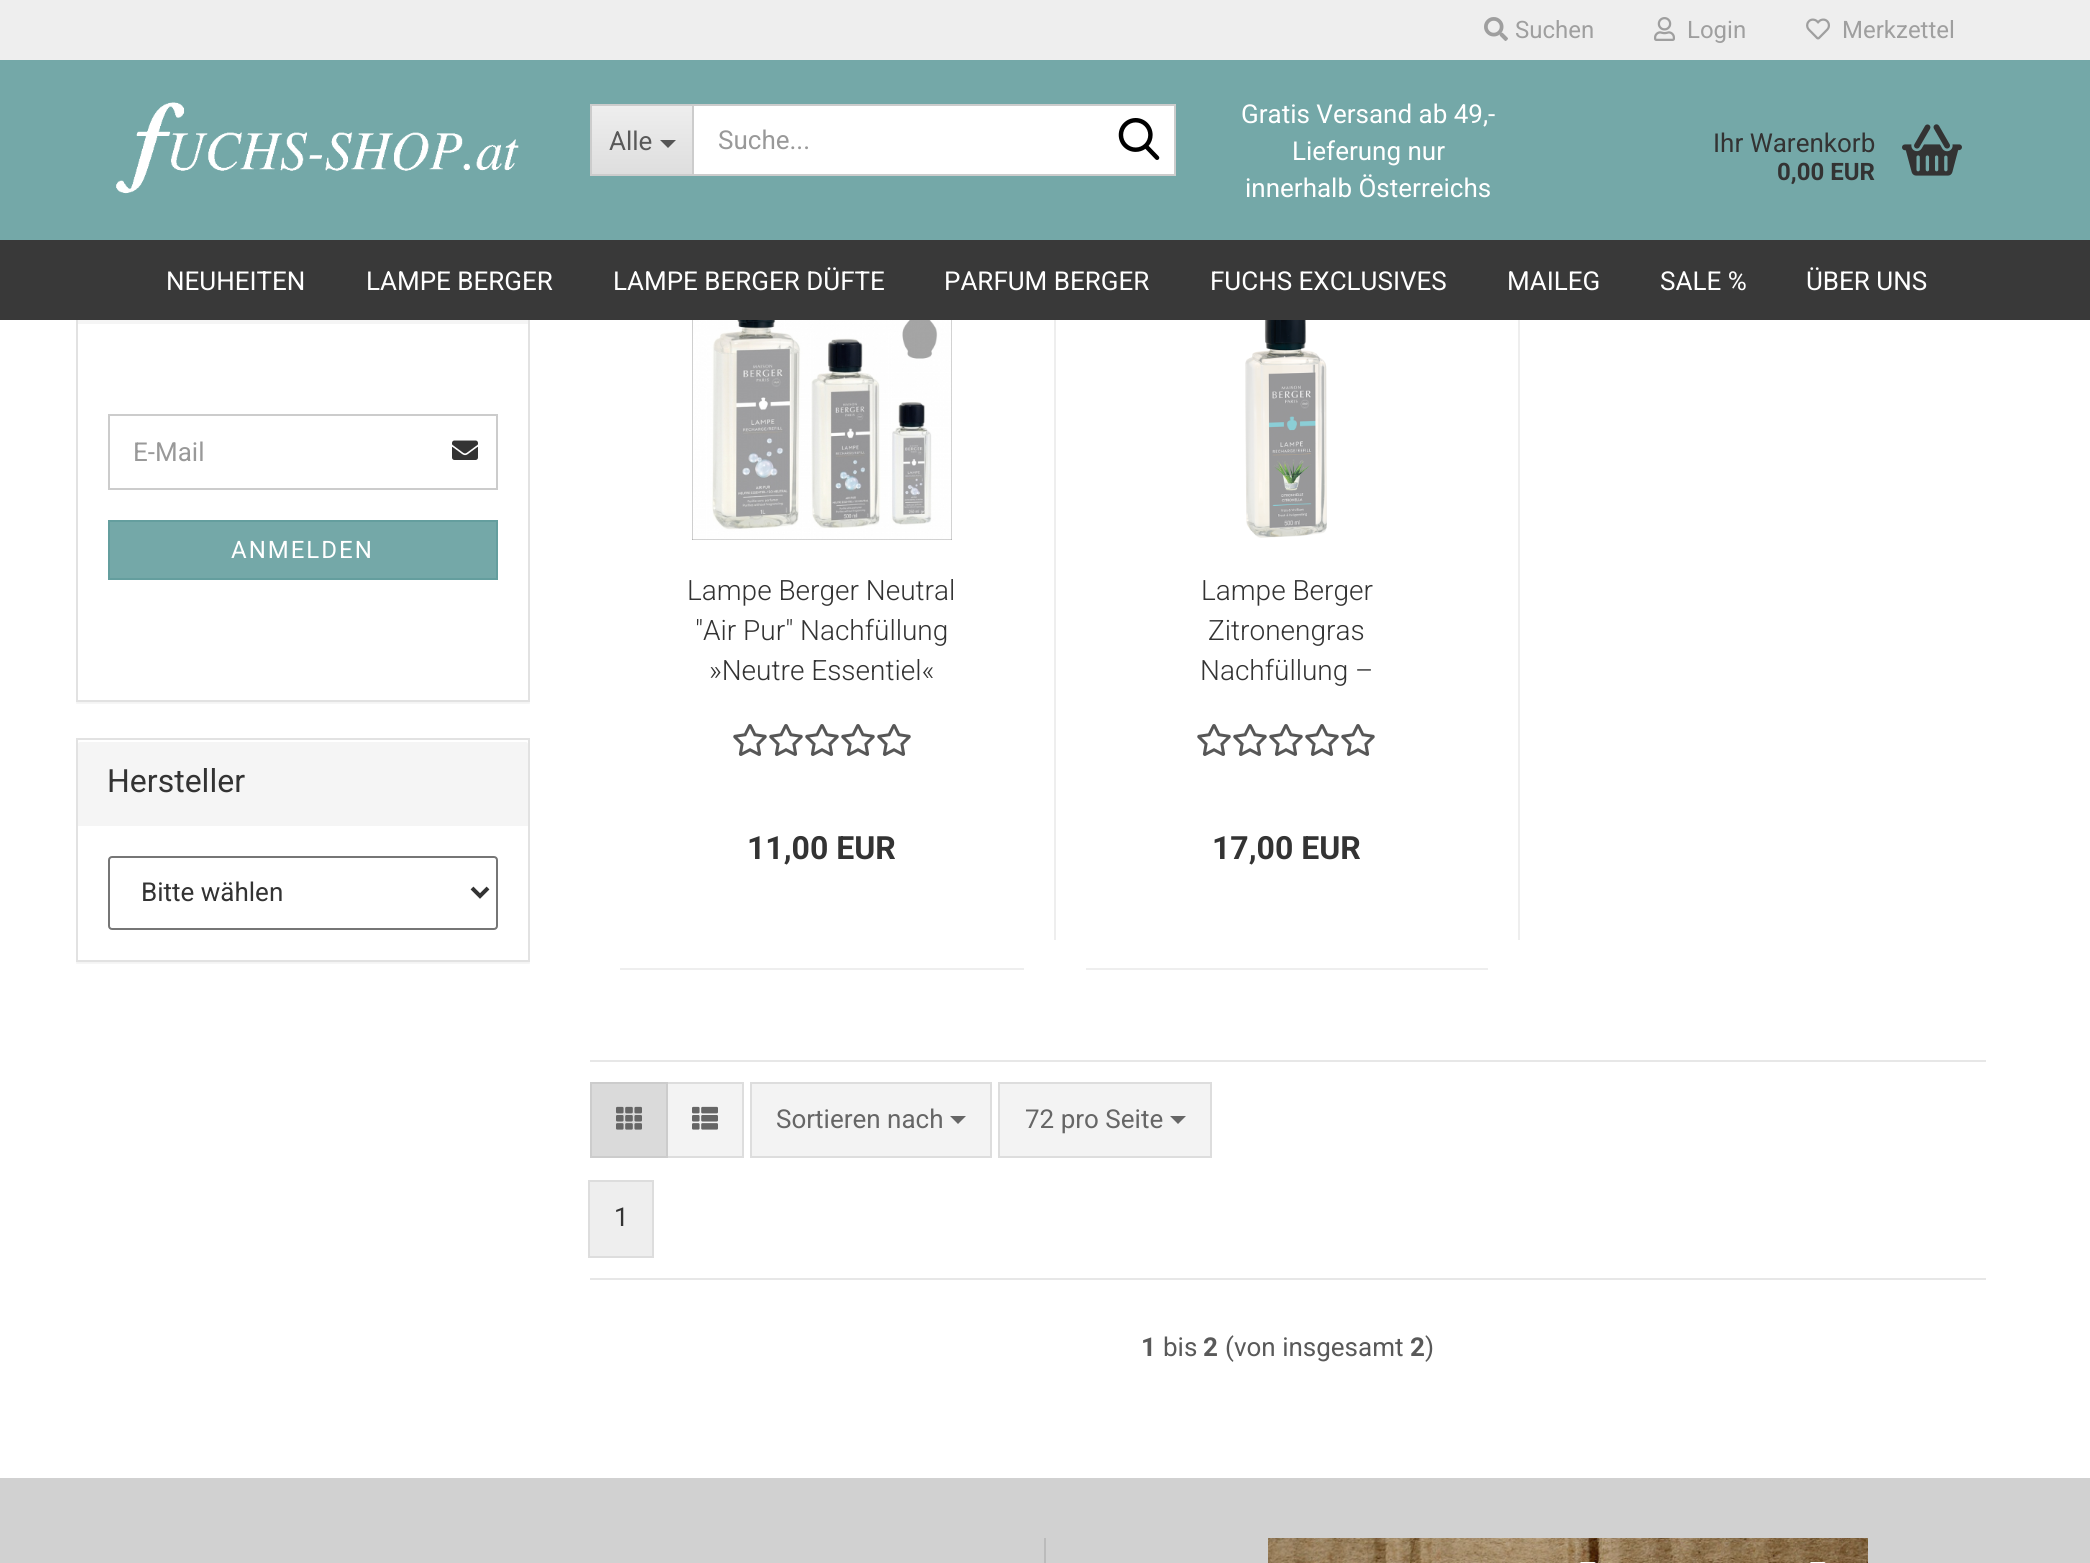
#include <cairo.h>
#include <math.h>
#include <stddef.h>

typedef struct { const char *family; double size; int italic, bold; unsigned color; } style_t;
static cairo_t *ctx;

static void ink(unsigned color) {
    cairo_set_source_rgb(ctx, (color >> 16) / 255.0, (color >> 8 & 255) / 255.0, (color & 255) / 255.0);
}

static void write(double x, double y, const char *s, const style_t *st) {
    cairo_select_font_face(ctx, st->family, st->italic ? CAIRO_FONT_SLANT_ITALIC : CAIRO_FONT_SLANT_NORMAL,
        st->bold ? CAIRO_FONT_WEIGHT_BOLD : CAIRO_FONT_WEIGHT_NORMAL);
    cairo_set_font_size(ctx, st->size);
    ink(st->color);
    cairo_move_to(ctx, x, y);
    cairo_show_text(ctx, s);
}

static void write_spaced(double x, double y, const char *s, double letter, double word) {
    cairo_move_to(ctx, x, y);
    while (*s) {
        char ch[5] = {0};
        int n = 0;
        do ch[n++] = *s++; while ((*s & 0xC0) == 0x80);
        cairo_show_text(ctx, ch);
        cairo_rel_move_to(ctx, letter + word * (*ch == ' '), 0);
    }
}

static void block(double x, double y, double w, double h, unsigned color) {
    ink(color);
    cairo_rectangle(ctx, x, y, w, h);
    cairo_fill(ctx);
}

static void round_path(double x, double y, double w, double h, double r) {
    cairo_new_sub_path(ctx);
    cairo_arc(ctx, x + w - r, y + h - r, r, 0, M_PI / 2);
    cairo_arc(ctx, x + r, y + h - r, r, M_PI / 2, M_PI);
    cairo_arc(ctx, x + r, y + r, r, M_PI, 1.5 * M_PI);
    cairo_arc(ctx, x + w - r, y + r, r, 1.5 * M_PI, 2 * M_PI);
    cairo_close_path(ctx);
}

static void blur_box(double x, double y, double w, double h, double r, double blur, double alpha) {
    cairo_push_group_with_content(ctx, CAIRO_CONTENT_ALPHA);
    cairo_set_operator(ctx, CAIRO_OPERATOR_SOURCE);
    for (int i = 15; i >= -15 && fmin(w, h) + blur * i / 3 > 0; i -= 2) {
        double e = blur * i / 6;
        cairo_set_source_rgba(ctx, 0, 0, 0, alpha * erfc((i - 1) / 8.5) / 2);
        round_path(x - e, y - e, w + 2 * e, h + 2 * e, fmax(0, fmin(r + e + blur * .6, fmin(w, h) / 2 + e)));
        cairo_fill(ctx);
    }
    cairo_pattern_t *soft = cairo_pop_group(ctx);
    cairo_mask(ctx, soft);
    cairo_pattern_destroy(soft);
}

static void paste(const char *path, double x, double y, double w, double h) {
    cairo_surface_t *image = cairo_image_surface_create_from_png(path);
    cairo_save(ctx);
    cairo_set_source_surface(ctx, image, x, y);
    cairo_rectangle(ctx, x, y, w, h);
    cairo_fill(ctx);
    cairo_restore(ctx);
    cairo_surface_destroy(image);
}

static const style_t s1 = {"Roboto", 24, 0, 0, 0x9f9f9f};
static const style_t s2 = {"Roboto", 26, 0, 0, 0x595959};
static const style_t s3 = {"Roboto", 26, 0, 0, 0x999999};
static const style_t s4 = {"Roboto", 26, 0, 0, 0xffffff};
static const style_t s5 = {"Roboto", 26, 0, 0, 0x333333};
static const style_t s6 = {"Roboto", 24, 0, 1, 0x333333};
static const style_t s7 = {"Roboto", 32, 0, 0, 0x333333};
static const style_t s8 = {"Roboto Light", 28, 0, 0, 0x333333};
static const style_t s9 = {"Roboto", 32, 0, 1, 0x333333};
static const style_t s10 = {"Roboto", 26, 0, 0, 0x666666};
static const style_t s11 = {"Roboto", 26, 0, 1, 0x595959};

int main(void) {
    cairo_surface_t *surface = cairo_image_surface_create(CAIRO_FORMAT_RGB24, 2090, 1563);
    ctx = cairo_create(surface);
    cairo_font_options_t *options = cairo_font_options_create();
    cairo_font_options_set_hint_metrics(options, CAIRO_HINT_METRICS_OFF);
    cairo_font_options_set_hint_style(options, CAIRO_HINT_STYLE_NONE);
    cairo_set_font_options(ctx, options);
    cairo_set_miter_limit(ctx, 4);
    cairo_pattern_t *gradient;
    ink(0xffffff);
    cairo_paint(ctx);
    cairo_save(ctx);
    cairo_rectangle(ctx, 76, 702, 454, 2);
    cairo_clip(ctx);
    ink(0x000000);
    blur_box(76, 238, 454, 466, 0, 1, 0.05);
    cairo_restore(ctx);
    cairo_rectangle(ctx, 77, 237, 452, 464);
    ink(0xe2e2e2);
    cairo_stroke(ctx);
    block(0, 60, 2090, 180, 0x74a8a8);
    block(0, 0, 2090, 60, 0xeeeeee);
    paste("pic1.png", 1484, 17, 24, 24);
    write(1515, 38, "Suchen", &s1);
    paste("pic2.png", 1654, 17, 21, 24);
    write(1687, 38, "Login", &s1);
    paste("pic3.png", 1806, 18, 24, 22);
    write(1842, 38, "Merkzettel", &s1);
    paste("pic4.png", 116, 102, 403, 92);
    gradient = cairo_pattern_create_linear(642, 106, 642, 174);
    cairo_pattern_add_color_stop_rgba(gradient, 0, 0.933, 0.933, 0.933, 1);
    cairo_pattern_add_color_stop_rgba(gradient, 1, 0.871, 0.871, 0.871, 1);
    cairo_set_source(ctx, gradient);
    cairo_pattern_destroy(gradient);
    cairo_rectangle(ctx, 592, 106, 100, 68);
    cairo_fill(ctx);
    block(590, 104, 102, 2, 0xcccccc);
    block(590, 174, 102, 2, 0xcccccc);
    block(590, 104, 2, 72, 0xcccccc);
    write(609, 150, "Alle", &s2);
    ink(0x555555);
    cairo_new_path(ctx);
    cairo_move_to(ctx, 660, 140);
    cairo_line_to(ctx, 676, 140);
    cairo_line_to(ctx, 668, 148);
    cairo_close_path(ctx);
    cairo_fill(ctx);
    ink(0xffffff);
    cairo_rectangle(ctx, 693, 105, 482, 70);
    cairo_fill_preserve(ctx);
    ink(0xcccccc);
    cairo_stroke(ctx);
    write(718, 149, "Suche...", &s3);
    paste("pic5.png", 1118, 118, 42, 42);
    write(1241, 123, "Gratis Versand ab 49,-", &s4);
    write(1292, 160, "Lieferung nur", &s4);
    write(1245, 197, "innerhalb Österreichs", &s4);
    write(1713, 152, "Ihr Warenkorb", &s5);
    write(1777, 180, "0,00 EUR", &s6);
    paste("pic6.png", 1902, 124, 60, 52);
    block(0, 240, 2090, 80, 0x393939);
    write(166, 290, "NEUHEITEN", &s4);
    write(366, 290, "LAMPE BERGER", &s4);
    write(613, 290, "LAMPE BERGER DÜFTE", &s4);
    write(944, 290, "PARFUM BERGER", &s4);
    write(1210, 290, "FUCHS EXCLUSIVES", &s4);
    write(1507, 290, "MAILEG", &s4);
    write(1660, 290, "SALE %", &s4);
    write(1806, 290, "ÜBER UNS", &s4);
    block(78, 320, 450, 4, 0xf5f5f5);
    cairo_rectangle(ctx, 109, 415, 388, 74);
    ink(0xcccccc);
    cairo_stroke(ctx);
    write(133, 461, "E-Mail", &s3);
    paste("pic7.png", 452, 440, 26, 20);
    ink(0x74a8a8);
    cairo_rectangle(ctx, 109, 521, 388, 58);
    cairo_fill_preserve(ctx);
    ink(0x649e9e);
    cairo_stroke(ctx);
    cairo_set_font_size(ctx, 24);
    ink(0xffffff);
    write_spaced(231, 558, "ANMELDEN", 2, 0);
    cairo_save(ctx);
    cairo_rectangle(ctx, 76, 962, 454, 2);
    cairo_clip(ctx);
    ink(0x000000);
    blur_box(76, 740, 454, 224, 0, 1, 0.05);
    cairo_restore(ctx);
    cairo_rectangle(ctx, 77, 739, 452, 222);
    ink(0xe2e2e2);
    cairo_stroke(ctx);
    ink(0xf5f5f5);
    cairo_new_path(ctx);
    cairo_move_to(ctx, 80, 740);
    cairo_line_to(ctx, 526, 740);
    cairo_curve_to(ctx, 527, 740, 528, 741, 528, 742);
    cairo_line_to(ctx, 528, 826);
    cairo_line_to(ctx, 78, 826);
    cairo_line_to(ctx, 78, 742);
    cairo_curve_to(ctx, 78, 741, 79, 740, 80, 740);
    cairo_close_path(ctx);
    cairo_fill(ctx);
    ink(0xffffff);
    cairo_new_path(ctx);
    cairo_move_to(ctx, 80, 742);
    cairo_line_to(ctx, 526, 742);
    cairo_curve_to(ctx, 527, 742, 528, 743, 528, 744);
    cairo_line_to(ctx, 528, 741);
    cairo_line_to(ctx, 527, 740);
    cairo_line_to(ctx, 80, 740);
    cairo_curve_to(ctx, 78, 740, 78, 742, 78, 744);
    cairo_curve_to(ctx, 78, 743, 79, 742, 80, 742);
    cairo_close_path(ctx);
    cairo_fill(ctx);
    write(107, 792, "Hersteller", &s7);
    round_path(109, 857, 388, 72, 3);
    ink(0x767676);
    cairo_stroke(ctx);
    cairo_new_path(ctx);
    cairo_move_to(ctx, 472, 888);
    cairo_line_to(ctx, 480, 896);
    cairo_line_to(ctx, 488, 888);
    ink(0x333333);
    cairo_set_line_width(ctx, 4);
    cairo_stroke(ctx);
    write(141, 901, "Bitte wählen", &s5);
    block(1054, 320, 2, 620, 0xeeeeee);
    block(620, 968, 404, 2, 0xeeeeee);
    paste("pic8.png", 692, 320, 260, 220);
    write(687, 600, "Lampe Berger Neutral", &s8);
    write(695, 640, "\"Air Pur\" Nachfüllung", &s8);
    write(709, 680, "»Neutre Essentiel«", &s8);
    paste("pic9.png", 733, 724, 34, 32);
    paste("pic9.png", 769, 724, 34, 32);
    paste("pic9.png", 805, 724, 34, 32);
    paste("pic9.png", 841, 724, 34, 32);
    paste("pic9.png", 877, 724, 34, 32);
    write(747, 859, "11,00 EUR", &s9);
    block(1518, 320, 2, 620, 0xeeeeee);
    block(1086, 968, 402, 2, 0xeeeeee);
    paste("pic10.png", 1245, 320, 82, 218);
    write(1201, 600, "Lampe Berger", &s8);
    write(1208, 640, "Zitronengras", &s8);
    write(1200, 680, "Nachfüllung –", &s8);
    paste("pic9.png", 1197, 724, 34, 32);
    paste("pic9.png", 1233, 724, 34, 32);
    paste("pic9.png", 1269, 724, 34, 32);
    paste("pic9.png", 1305, 724, 34, 32);
    paste("pic9.png", 1341, 724, 34, 32);
    write(1212, 859, "17,00 EUR", &s9);
    block(590, 1060, 1396, 2, 0xe7e7e7);
    block(590, 1278, 1396, 2, 0xe7e7e7);
    ink(0xf3f3f3);
    cairo_rectangle(ctx, 667, 1083, 76, 74);
    cairo_fill_preserve(ctx);
    ink(0xdddddd);
    cairo_set_line_width(ctx, 2);
    cairo_stroke(ctx);
    ink(0xdadada);
    cairo_rectangle(ctx, 591, 1083, 76, 74);
    cairo_fill_preserve(ctx);
    ink(0xcccccc);
    cairo_stroke(ctx);
    paste("pic11.png", 616, 1106, 26, 24);
    paste("pic12.png", 692, 1106, 26, 24);
    ink(0xf3f3f3);
    cairo_rectangle(ctx, 751, 1083, 240, 74);
    cairo_fill_preserve(ctx);
    ink(0xdddddd);
    cairo_stroke(ctx);
    write(776, 1128, "Sortieren nach", &s10);
    cairo_new_path(ctx);
    cairo_move_to(ctx, 950, 1116);
    cairo_line_to(ctx, 966, 1116);
    cairo_line_to(ctx, 958, 1124);
    cairo_close_path(ctx);
    cairo_fill(ctx);
    ink(0xf3f3f3);
    cairo_rectangle(ctx, 999, 1083, 212, 74);
    cairo_fill_preserve(ctx);
    ink(0xdddddd);
    cairo_stroke(ctx);
    write(1025, 1128, "72 pro Seite", &s10);
    cairo_new_path(ctx);
    cairo_move_to(ctx, 1170, 1116);
    cairo_line_to(ctx, 1186, 1116);
    cairo_line_to(ctx, 1178, 1124);
    cairo_close_path(ctx);
    cairo_fill(ctx);
    ink(0xeeeeee);
    cairo_rectangle(ctx, 589, 1181, 64, 76);
    cairo_fill_preserve(ctx);
    ink(0xdddddd);
    cairo_stroke(ctx);
    write(614, 1226, "1", &s5);
    write(1141, 1356, "1", &s11);
    write(1163, 1356, "bis", &s2);
    write(1203, 1356, "2", &s11);
    write(1225, 1356, "(von insgesamt", &s2);
    write(1410, 1356, "2", &s11);
    write(1425, 1356, ")", &s2);
    block(0, 1478, 2090, 85, 0xd1d1d1);
    block(1044, 1538, 2, 25, 0xbbbbbb);
    paste("pic13.png", 1268, 1538, 600, 25);
    cairo_surface_write_to_png(surface, "screenshot.png");
    cairo_font_options_destroy(options);
    cairo_destroy(ctx);
    cairo_surface_destroy(surface);
    return 0;
}
